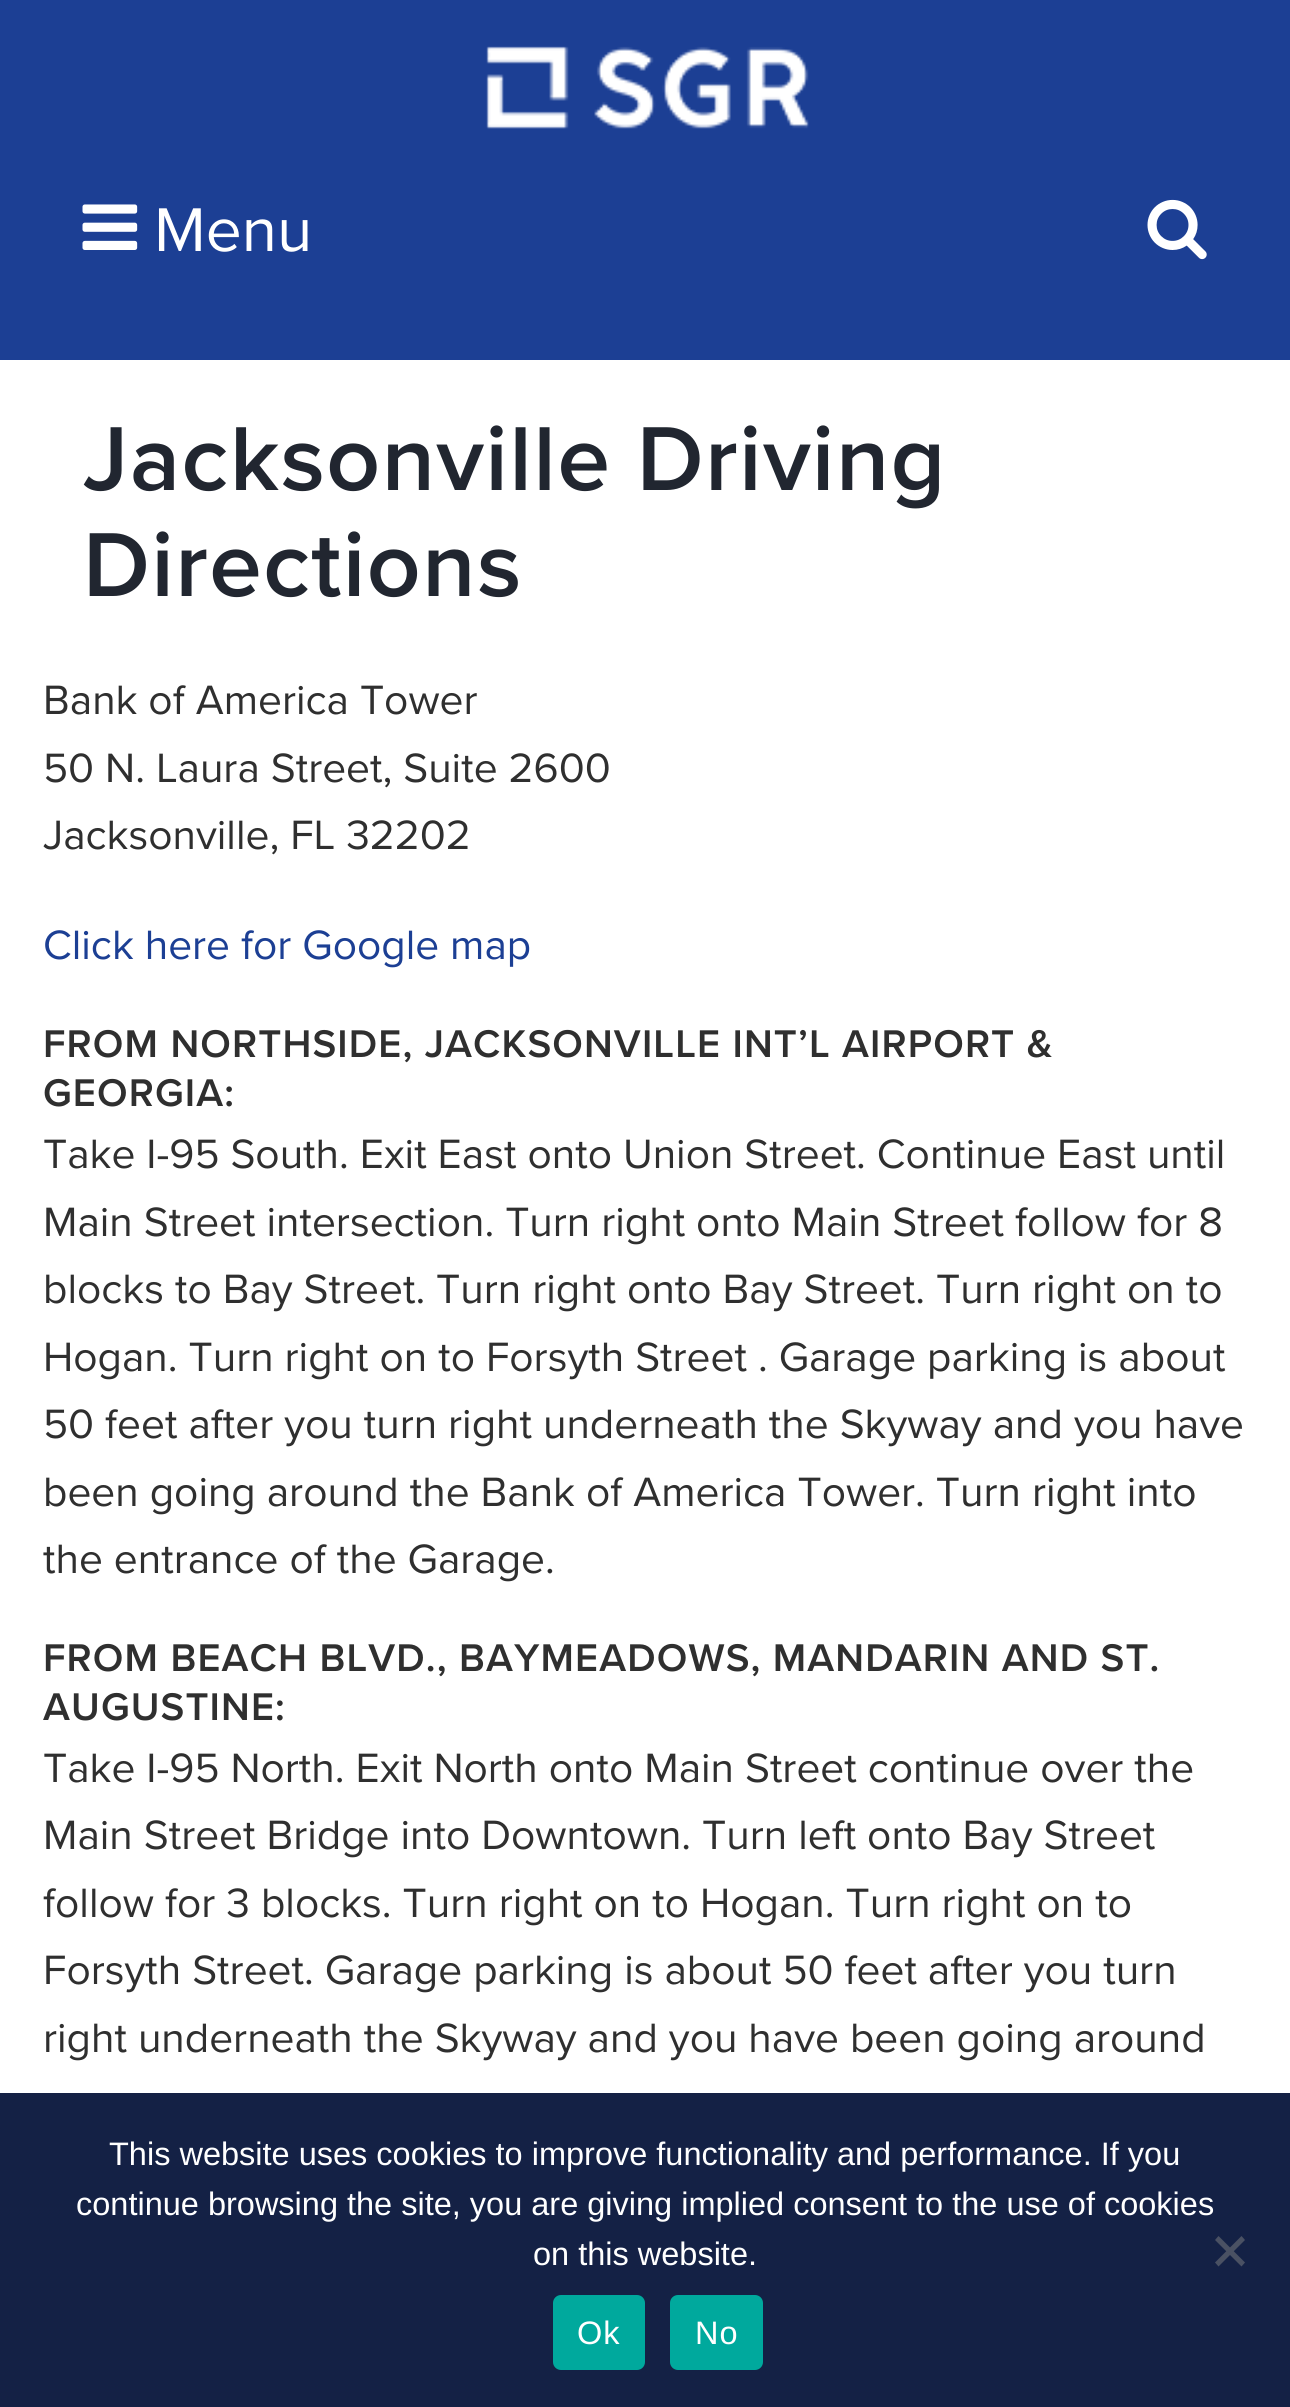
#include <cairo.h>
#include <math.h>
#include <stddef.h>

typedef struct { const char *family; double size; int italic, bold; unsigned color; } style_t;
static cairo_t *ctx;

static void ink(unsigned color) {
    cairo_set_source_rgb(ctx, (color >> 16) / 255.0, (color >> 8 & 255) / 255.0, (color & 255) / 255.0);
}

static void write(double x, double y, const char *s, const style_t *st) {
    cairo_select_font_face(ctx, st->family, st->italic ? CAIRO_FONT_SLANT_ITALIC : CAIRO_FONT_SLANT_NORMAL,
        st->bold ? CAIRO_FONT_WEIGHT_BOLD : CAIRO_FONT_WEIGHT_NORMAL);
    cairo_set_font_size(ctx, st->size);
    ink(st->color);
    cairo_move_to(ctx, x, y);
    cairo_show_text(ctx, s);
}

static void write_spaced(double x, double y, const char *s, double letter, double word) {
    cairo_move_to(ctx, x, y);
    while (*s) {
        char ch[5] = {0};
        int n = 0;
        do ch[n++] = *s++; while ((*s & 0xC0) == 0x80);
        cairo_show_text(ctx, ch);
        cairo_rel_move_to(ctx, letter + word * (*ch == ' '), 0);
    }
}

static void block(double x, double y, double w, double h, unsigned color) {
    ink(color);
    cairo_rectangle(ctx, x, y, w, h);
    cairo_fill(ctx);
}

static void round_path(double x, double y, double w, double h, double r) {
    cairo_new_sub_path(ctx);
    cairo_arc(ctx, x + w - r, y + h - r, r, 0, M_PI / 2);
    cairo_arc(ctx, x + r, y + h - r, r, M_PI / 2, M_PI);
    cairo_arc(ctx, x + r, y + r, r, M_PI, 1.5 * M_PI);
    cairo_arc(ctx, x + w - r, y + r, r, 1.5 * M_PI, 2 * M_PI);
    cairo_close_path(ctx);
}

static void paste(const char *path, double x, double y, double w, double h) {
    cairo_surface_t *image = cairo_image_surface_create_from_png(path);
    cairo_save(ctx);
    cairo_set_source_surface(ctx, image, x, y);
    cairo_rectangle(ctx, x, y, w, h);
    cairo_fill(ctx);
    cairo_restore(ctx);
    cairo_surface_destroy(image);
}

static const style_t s1 = {"Proxima Nova", 64, 0, 0, 0xffffff};
static const style_t s2 = {"Proxima Nova", 42.5, 0, 0, 0x2f2f2f};
static const style_t s3 = {"Proxima Nova", 42.5, 0, 0, 0x1c3f94};
static const style_t s4 = {"Liberation Sans", 32.5, 0, 0, 0xffffff};

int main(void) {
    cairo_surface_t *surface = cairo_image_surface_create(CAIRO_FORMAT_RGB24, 1290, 2407);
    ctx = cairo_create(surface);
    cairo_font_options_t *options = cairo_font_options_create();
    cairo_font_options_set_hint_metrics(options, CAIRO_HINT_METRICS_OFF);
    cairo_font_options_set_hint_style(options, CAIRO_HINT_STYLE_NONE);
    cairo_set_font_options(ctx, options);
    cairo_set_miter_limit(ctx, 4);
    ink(0xffffff);
    cairo_paint(ctx);
    block(0, 0, 1290, 360, 0x1c3f94);
    paste("pic1.png", 486, 46, 323, 83);
    paste("pic2.png", 82, 204, 56, 46);
    write(154, 251, "Menu", &s1);
    paste("pic3.png", 1147, 199, 60, 61);
    cairo_select_font_face(ctx, "Proxima Nova SemiBold", CAIRO_FONT_SLANT_NORMAL, CAIRO_FONT_WEIGHT_NORMAL);
    cairo_set_font_size(ctx, 94.1);
    ink(0x212630);
    write_spaced(83, 490, "Jacksonville Driving", 1.4, 0);
    write_spaced(83, 596, "Directions", 1.4, 0);
    write(43, 714, "Bank of America Tower", &s2);
    write(43, 782, "50 N. Laura Street, Suite 2600", &s2);
    write(43, 849, "Jacksonville, FL 32202", &s2);
    write(43, 959, "Click here for Google map", &s3);
    cairo_select_font_face(ctx, "Proxima Nova SemiBold", CAIRO_FONT_SLANT_NORMAL, CAIRO_FONT_WEIGHT_NORMAL);
    cairo_set_font_size(ctx, 40);
    ink(0x2f2f2f);
    write_spaced(43, 1057, "FROM NORTHSIDE, JACKSONVILLE INT’L AIRPORT &", 1.1, 0);
    write_spaced(43, 1106, "GEORGIA:", 1.1, 0);
    write(43, 1168, "Take I-95 South. Exit East onto Union Street. Continue East until", &s2);
    write(43, 1236, "Main Street intersection. Turn right onto Main Street follow for 8", &s2);
    write(43, 1303, "blocks to Bay Street. Turn right onto Bay Street. Turn right on to", &s2);
    write(43, 1371, "Hogan. Turn right on to Forsyth Street . Garage parking is about", &s2);
    write(43, 1438, "50 feet after you turn right underneath the Skyway and you have", &s2);
    write(43, 1506, "been going around the Bank of America Tower. Turn right into", &s2);
    write(43, 1573, "the entrance of the Garage.", &s2);
    cairo_select_font_face(ctx, "Proxima Nova SemiBold", CAIRO_FONT_SLANT_NORMAL, CAIRO_FONT_WEIGHT_NORMAL);
    cairo_set_font_size(ctx, 40);
    write_spaced(43, 1671, "FROM BEACH BLVD., BAYMEADOWS, MANDARIN AND ST.", 1.1, 0);
    write_spaced(43, 1720, "AUGUSTINE:", 1.1, 0);
    write(43, 1782, "Take I-95 North. Exit North onto Main Street continue over the", &s2);
    write(43, 1849, "Main Street Bridge into Downtown. Turn left onto Bay Street", &s2);
    write(43, 1917, "follow for 3 blocks. Turn right on to Hogan. Turn right on to", &s2);
    write(43, 1984, "Forsyth Street. Garage parking is about 50 feet after you turn", &s2);
    write(43, 2052, "right underneath the Skyway and you have been going around", &s2);
    block(0, 2093, 1290, 314, 0x142145);
    write(109, 2165, "This website uses cookies to improve functionality and performance. If you", &s4);
    write(76, 2215, "continue browsing the site, you are giving implied consent to the use of cookies", &s4);
    write(533, 2265, "on this website.", &s4);
    ink(0x4a5163);
    cairo_new_path(ctx);
    cairo_move_to(ctx, 1241.5, 2236);
    cairo_line_to(ctx, 1245, 2240);
    cairo_line_to(ctx, 1218.5, 2266.5);
    cairo_line_to(ctx, 1215, 2262.5);
    cairo_close_path(ctx);
    cairo_fill(ctx);
    cairo_new_path(ctx);
    cairo_move_to(ctx, 1215, 2240);
    cairo_line_to(ctx, 1218.5, 2236);
    cairo_line_to(ctx, 1245, 2262.5);
    cairo_line_to(ctx, 1241.5, 2266.5);
    cairo_close_path(ctx);
    cairo_fill(ctx);
    ink(0x00a99d);
    round_path(553, 2295, 92, 75, 8);
    cairo_fill(ctx);
    ink(0xffffff);
    write_spaced(577, 2344, "Ok", 1, 0);
    ink(0x00a99d);
    round_path(670, 2295, 93, 75, 8);
    cairo_fill(ctx);
    ink(0xffffff);
    write_spaced(695, 2344, "No", 1, 0);
    cairo_surface_write_to_png(surface, "screenshot.png");
    cairo_font_options_destroy(options);
    cairo_destroy(ctx);
    cairo_surface_destroy(surface);
    return 0;
}
